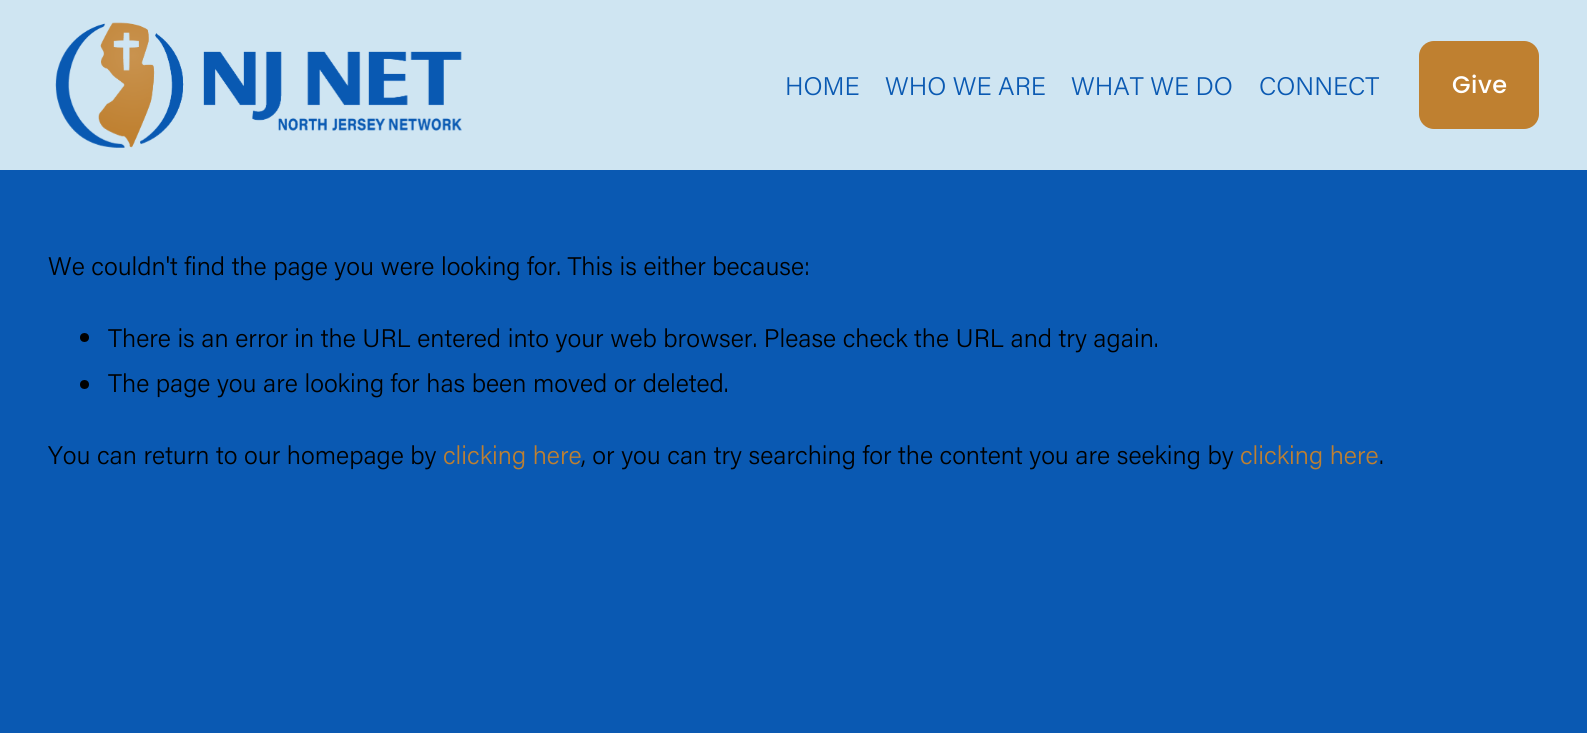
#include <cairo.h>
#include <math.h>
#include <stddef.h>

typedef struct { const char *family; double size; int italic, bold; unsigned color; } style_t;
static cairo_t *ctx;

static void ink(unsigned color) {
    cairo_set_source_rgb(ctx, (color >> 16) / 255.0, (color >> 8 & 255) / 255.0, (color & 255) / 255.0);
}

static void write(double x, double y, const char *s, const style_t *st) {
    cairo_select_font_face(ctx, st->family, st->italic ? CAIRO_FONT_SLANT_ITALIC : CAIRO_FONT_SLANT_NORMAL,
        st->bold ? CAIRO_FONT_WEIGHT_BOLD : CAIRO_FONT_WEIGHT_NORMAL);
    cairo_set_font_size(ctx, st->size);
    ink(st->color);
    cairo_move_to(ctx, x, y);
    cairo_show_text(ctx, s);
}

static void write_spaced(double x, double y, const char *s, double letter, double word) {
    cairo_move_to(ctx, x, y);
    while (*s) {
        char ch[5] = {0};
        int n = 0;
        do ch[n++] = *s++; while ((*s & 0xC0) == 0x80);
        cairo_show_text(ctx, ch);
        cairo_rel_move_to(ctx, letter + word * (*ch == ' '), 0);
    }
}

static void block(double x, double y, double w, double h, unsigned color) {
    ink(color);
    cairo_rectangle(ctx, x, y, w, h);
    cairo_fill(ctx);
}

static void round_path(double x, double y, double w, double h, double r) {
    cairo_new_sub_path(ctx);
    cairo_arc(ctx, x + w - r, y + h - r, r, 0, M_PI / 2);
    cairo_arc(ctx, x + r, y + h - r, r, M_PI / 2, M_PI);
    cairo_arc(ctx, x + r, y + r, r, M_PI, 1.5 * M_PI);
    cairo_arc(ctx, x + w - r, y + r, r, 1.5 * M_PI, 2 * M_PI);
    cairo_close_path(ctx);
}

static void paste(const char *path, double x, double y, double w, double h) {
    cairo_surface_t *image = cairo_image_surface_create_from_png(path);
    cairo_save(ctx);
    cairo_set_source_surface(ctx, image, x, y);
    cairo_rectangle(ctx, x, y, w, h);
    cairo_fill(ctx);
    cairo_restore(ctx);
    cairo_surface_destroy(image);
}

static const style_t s1 = {"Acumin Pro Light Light", 25.5, 0, 0, 0x0a59b2};
static const style_t s2 = {"Acumin Pro Light Light", 25.5, 0, 0, 0x000000};
static const style_t s3 = {"Acumin Pro Light Light", 25.5, 0, 0, 0xbf8030};

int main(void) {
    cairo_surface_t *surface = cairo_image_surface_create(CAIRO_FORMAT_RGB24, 1587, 733);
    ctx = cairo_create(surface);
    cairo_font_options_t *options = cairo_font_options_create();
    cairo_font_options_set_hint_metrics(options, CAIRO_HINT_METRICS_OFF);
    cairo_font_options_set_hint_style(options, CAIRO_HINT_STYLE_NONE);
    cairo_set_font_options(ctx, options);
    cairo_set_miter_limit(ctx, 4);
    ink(0x0a59b2);
    cairo_paint(ctx);
    block(0, 0, 1587, 170, 0xcfe5f2);
    paste("pic1.png", 55, 22, 407, 126);
    write(785, 95, "HOME", &s1);
    write(885, 95, "WHO WE ARE", &s1);
    write(1071, 95, "WHAT WE DO", &s1);
    write(1259, 95, "CONNECT", &s1);
    ink(0xbf8030);
    round_path(1419, 41, 120, 88, 15);
    cairo_fill(ctx);
    cairo_select_font_face(ctx, "Poppins Medium", CAIRO_FONT_SLANT_NORMAL, CAIRO_FONT_WEIGHT_NORMAL);
    cairo_set_font_size(ctx, 24);
    ink(0xffffff);
    write_spaced(1452, 93, "Give", 0.5, 0);
    write(48, 275, "We couldn't find the page you were looking for. This is either because:", &s2);
    cairo_new_path(ctx);
    cairo_arc(ctx, 84.5, 337.5, 4.5, 0, 2 * M_PI);
    cairo_fill(ctx);
    write(108, 347, "There is an error in the URL entered into your web browser. Please check the URL and try again.", &s2);
    cairo_new_path(ctx);
    cairo_arc(ctx, 84.5, 384.5, 4.5, 0, 2 * M_PI);
    cairo_fill(ctx);
    write(108, 392, "The page you are looking for has been moved or deleted.", &s2);
    write(48, 464, "You can return to our homepage by", &s2);
    write(443, 464, "clicking here", &s3);
    write(581, 464, ", or you can try searching for the content you are seeking by", &s2);
    write(1240, 464, "clicking here", &s3);
    write(1379, 464, ".", &s2);
    cairo_surface_write_to_png(surface, "screenshot.png");
    cairo_font_options_destroy(options);
    cairo_destroy(ctx);
    cairo_surface_destroy(surface);
    return 0;
}
